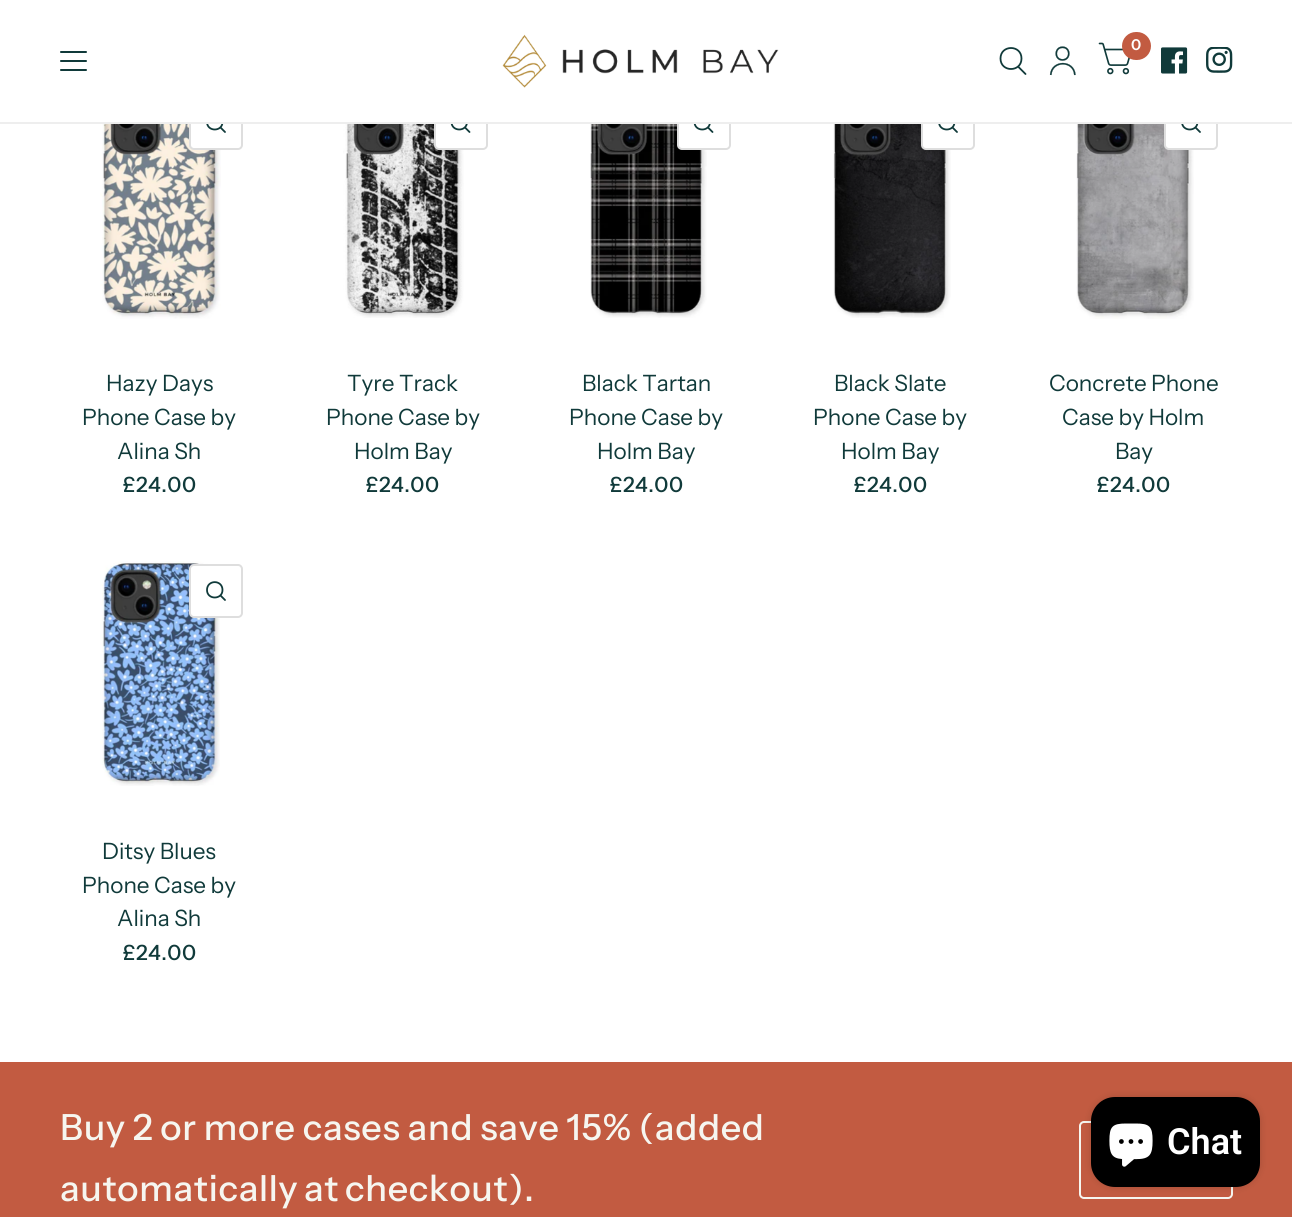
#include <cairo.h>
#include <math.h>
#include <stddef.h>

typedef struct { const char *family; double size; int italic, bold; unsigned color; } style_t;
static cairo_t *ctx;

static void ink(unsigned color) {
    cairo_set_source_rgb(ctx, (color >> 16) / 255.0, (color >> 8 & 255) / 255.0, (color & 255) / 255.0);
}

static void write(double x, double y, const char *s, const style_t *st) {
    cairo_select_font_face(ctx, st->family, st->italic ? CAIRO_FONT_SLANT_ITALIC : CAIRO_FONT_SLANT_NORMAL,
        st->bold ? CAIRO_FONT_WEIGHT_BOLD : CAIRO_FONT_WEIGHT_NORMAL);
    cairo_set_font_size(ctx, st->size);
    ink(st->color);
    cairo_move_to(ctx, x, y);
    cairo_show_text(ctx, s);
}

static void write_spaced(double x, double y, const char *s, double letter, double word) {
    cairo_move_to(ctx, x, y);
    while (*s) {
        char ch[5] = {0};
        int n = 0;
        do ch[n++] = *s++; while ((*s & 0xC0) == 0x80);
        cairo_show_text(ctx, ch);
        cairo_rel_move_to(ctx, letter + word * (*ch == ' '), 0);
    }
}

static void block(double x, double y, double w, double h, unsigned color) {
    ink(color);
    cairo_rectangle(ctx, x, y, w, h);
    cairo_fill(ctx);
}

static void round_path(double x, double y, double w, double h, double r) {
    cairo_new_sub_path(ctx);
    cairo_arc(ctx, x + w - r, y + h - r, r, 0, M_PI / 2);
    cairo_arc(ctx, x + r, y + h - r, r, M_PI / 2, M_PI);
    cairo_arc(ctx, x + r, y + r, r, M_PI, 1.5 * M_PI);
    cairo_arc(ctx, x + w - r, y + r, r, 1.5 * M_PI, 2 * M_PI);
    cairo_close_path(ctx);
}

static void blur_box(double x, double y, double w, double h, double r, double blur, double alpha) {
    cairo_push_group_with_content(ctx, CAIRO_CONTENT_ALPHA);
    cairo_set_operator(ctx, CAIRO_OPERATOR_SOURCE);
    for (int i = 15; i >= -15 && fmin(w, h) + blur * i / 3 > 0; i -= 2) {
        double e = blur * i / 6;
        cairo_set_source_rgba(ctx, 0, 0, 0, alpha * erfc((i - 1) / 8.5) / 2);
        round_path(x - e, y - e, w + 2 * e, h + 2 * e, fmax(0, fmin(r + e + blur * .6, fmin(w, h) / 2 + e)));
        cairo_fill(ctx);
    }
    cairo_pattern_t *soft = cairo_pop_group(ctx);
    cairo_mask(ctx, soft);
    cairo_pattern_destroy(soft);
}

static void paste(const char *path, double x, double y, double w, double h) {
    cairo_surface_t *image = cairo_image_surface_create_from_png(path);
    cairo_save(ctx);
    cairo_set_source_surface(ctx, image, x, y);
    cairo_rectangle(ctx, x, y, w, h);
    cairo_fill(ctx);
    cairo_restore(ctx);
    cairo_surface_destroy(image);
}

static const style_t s1 = {"Instrument Sans SemiBold", 15, 0, 0, 0xffffff};
static const style_t s2 = {"Instrument Sans", 22.5, 0, 0, 0x103a3a};
static const style_t s3 = {"Roboto SemiBold", 36, 0, 0, 0xffffff};

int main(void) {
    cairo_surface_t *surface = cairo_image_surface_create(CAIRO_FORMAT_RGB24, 1292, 1217);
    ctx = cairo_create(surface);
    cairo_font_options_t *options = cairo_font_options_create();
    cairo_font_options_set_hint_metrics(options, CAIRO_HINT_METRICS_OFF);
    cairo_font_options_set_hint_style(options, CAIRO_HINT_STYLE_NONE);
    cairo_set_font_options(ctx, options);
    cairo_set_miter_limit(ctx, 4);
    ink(0xffffff);
    cairo_paint(ctx);
    paste("pic6.png", 100, 124, 121, 195);
    ink(0xffffff);
    round_path(190, 97, 52, 52, 4);
    cairo_fill_preserve(ctx);
    ink(0xdedede);
    cairo_stroke(ctx);
    cairo_new_path(ctx);
    cairo_move_to(ctx, 220.5, 127.5);
    cairo_line_to(ctx, 225, 132);
    cairo_move_to(ctx, 222.5, 122);
    cairo_curve_to(ctx, 222.5, 132, 207, 132, 207, 122);
    cairo_curve_to(ctx, 207, 111.5, 222.5, 111.5, 222.5, 122);
    cairo_close_path(ctx);
    ink(0x103a3a);
    cairo_set_line_width(ctx, 1.8);
    cairo_set_line_cap(ctx, CAIRO_LINE_CAP_ROUND);
    cairo_set_line_join(ctx, CAIRO_LINE_JOIN_ROUND);
    cairo_stroke(ctx);
    paste("pic7.png", 343, 124, 121, 194);
    ink(0xffffff);
    round_path(435, 97, 52, 52, 4);
    cairo_fill_preserve(ctx);
    ink(0xdedede);
    cairo_set_line_width(ctx, 2);
    cairo_set_line_cap(ctx, CAIRO_LINE_CAP_BUTT);
    cairo_set_line_join(ctx, CAIRO_LINE_JOIN_MITER);
    cairo_stroke(ctx);
    cairo_new_path(ctx);
    cairo_move_to(ctx, 465, 127.5);
    cairo_line_to(ctx, 469.5, 132);
    cairo_move_to(ctx, 467, 122);
    cairo_curve_to(ctx, 467, 132, 451.5, 132, 451.5, 122);
    cairo_curve_to(ctx, 451.5, 111.5, 467, 111.5, 467, 122);
    cairo_close_path(ctx);
    ink(0x103a3a);
    cairo_set_line_width(ctx, 1.8);
    cairo_set_line_cap(ctx, CAIRO_LINE_CAP_ROUND);
    cairo_set_line_join(ctx, CAIRO_LINE_JOIN_ROUND);
    cairo_stroke(ctx);
    paste("pic8.png", 590, 124, 117, 194);
    ink(0xffffff);
    round_path(678, 97, 52, 52, 4);
    cairo_fill_preserve(ctx);
    ink(0xdedede);
    cairo_set_line_width(ctx, 2);
    cairo_set_line_cap(ctx, CAIRO_LINE_CAP_BUTT);
    cairo_set_line_join(ctx, CAIRO_LINE_JOIN_MITER);
    cairo_stroke(ctx);
    cairo_new_path(ctx);
    cairo_move_to(ctx, 708, 127.5);
    cairo_line_to(ctx, 712.5, 132);
    cairo_move_to(ctx, 710, 122);
    cairo_curve_to(ctx, 710, 132, 694.5, 132, 694.5, 122);
    cairo_curve_to(ctx, 694.5, 111.5, 710, 111.5, 710, 122);
    cairo_close_path(ctx);
    ink(0x103a3a);
    cairo_set_line_width(ctx, 1.8);
    cairo_set_line_cap(ctx, CAIRO_LINE_CAP_ROUND);
    cairo_set_line_join(ctx, CAIRO_LINE_JOIN_ROUND);
    cairo_stroke(ctx);
    paste("pic9.png", 833, 124, 118, 194);
    ink(0xffffff);
    round_path(922, 97, 52, 52, 4);
    cairo_fill_preserve(ctx);
    ink(0xdedede);
    cairo_set_line_width(ctx, 2);
    cairo_set_line_cap(ctx, CAIRO_LINE_CAP_BUTT);
    cairo_set_line_join(ctx, CAIRO_LINE_JOIN_MITER);
    cairo_stroke(ctx);
    cairo_new_path(ctx);
    cairo_move_to(ctx, 952.5, 127.5);
    cairo_line_to(ctx, 957, 132);
    cairo_move_to(ctx, 954.5, 122);
    cairo_curve_to(ctx, 954.5, 132, 939, 132, 939, 122);
    cairo_curve_to(ctx, 939, 111.5, 954.5, 111.5, 954.5, 122);
    cairo_close_path(ctx);
    ink(0x103a3a);
    cairo_set_line_width(ctx, 1.8);
    cairo_set_line_cap(ctx, CAIRO_LINE_CAP_ROUND);
    cairo_set_line_join(ctx, CAIRO_LINE_JOIN_ROUND);
    cairo_stroke(ctx);
    paste("pic10.png", 1076, 124, 118, 195);
    ink(0xffffff);
    round_path(1165, 97, 52, 52, 4);
    cairo_fill_preserve(ctx);
    ink(0xdedede);
    cairo_set_line_width(ctx, 2);
    cairo_set_line_cap(ctx, CAIRO_LINE_CAP_BUTT);
    cairo_set_line_join(ctx, CAIRO_LINE_JOIN_MITER);
    cairo_stroke(ctx);
    cairo_new_path(ctx);
    cairo_move_to(ctx, 1195.5, 127.5);
    cairo_line_to(ctx, 1200, 132);
    cairo_move_to(ctx, 1197.5, 122);
    cairo_curve_to(ctx, 1197.5, 132, 1182, 132, 1182, 122);
    cairo_curve_to(ctx, 1182, 111.5, 1197.5, 111.5, 1197.5, 122);
    cairo_close_path(ctx);
    ink(0x103a3a);
    cairo_set_line_width(ctx, 1.8);
    cairo_set_line_cap(ctx, CAIRO_LINE_CAP_ROUND);
    cairo_set_line_join(ctx, CAIRO_LINE_JOIN_ROUND);
    cairo_stroke(ctx);
    block(189, 96, 1029, 26, 0xffffff);
    block(0, 122, 1292, 2, 0xeeeeee);
    paste("pic1.png", 502, 34, 277, 54);
    cairo_new_path(ctx);
    cairo_move_to(ctx, 1018.5, 67);
    cairo_line_to(ctx, 1025.5, 74);
    cairo_move_to(ctx, 1021.5, 58.5);
    cairo_curve_to(ctx, 1021.5, 72.5, 1000.5, 72.5, 1000.5, 58.5);
    cairo_curve_to(ctx, 1000.5, 44.5, 1021.5, 44.5, 1021.5, 58.5);
    cairo_close_path(ctx);
    ink(0x103a3a);
    cairo_stroke(ctx);
    paste("pic2.png", 1049, 46, 27, 30);
    paste("pic3.png", 1098, 42, 32, 33);
    ink(0xc25b41);
    round_path(1122, 32, 29, 28, 14);
    cairo_fill(ctx);
    write(1131, 50, "0", &s1);
    paste("pic4.png", 1161, 47, 27, 27);
    paste("pic5.png", 1206, 47, 27, 26);
    ink(0x103a3a);
    round_path(60, 51, 27, 2, 1);
    cairo_fill(ctx);
    round_path(60, 60, 27, 2, 1);
    cairo_fill(ctx);
    round_path(60, 69, 27, 2, 1);
    cairo_fill(ctx);
    write(106, 391, "Hazy Days", &s2);
    write(82, 425, "Phone Case by", &s2);
    write(117, 459, "Alina Sh", &s2);
    cairo_select_font_face(ctx, "Instrument Sans Medium", CAIRO_FONT_SLANT_NORMAL, CAIRO_FONT_WEIGHT_NORMAL);
    cairo_set_font_size(ctx, 21);
    write_spaced(123, 492, "£24.00", 0.5, 0);
    write(347, 391, "Tyre Track", &s2);
    write(326, 425, "Phone Case by", &s2);
    write(354, 459, "Holm Bay", &s2);
    cairo_select_font_face(ctx, "Instrument Sans Medium", CAIRO_FONT_SLANT_NORMAL, CAIRO_FONT_WEIGHT_NORMAL);
    cairo_set_font_size(ctx, 21);
    write_spaced(366, 492, "£24.00", 0.5, 0);
    write(582, 391, "Black Tartan", &s2);
    write(569, 425, "Phone Case by", &s2);
    write(597, 459, "Holm Bay", &s2);
    cairo_select_font_face(ctx, "Instrument Sans Medium", CAIRO_FONT_SLANT_NORMAL, CAIRO_FONT_WEIGHT_NORMAL);
    cairo_set_font_size(ctx, 21);
    write_spaced(610, 492, "£24.00", 0.5, 0);
    write(834, 391, "Black Slate", &s2);
    write(813, 425, "Phone Case by", &s2);
    write(841, 459, "Holm Bay", &s2);
    cairo_select_font_face(ctx, "Instrument Sans Medium", CAIRO_FONT_SLANT_NORMAL, CAIRO_FONT_WEIGHT_NORMAL);
    cairo_set_font_size(ctx, 21);
    write_spaced(854, 492, "£24.00", 0.5, 0);
    write(1049, 391, "Concrete Phone", &s2);
    write(1062, 425, "Case by Holm", &s2);
    write(1115, 459, "Bay", &s2);
    cairo_select_font_face(ctx, "Instrument Sans Medium", CAIRO_FONT_SLANT_NORMAL, CAIRO_FONT_WEIGHT_NORMAL);
    cairo_set_font_size(ctx, 21);
    write_spaced(1097, 492, "£24.00", 0.5, 0);
    paste("pic11.png", 100, 561, 120, 225);
    ink(0xffffff);
    round_path(190, 565, 52, 52, 4);
    cairo_fill_preserve(ctx);
    ink(0xdedede);
    cairo_set_line_width(ctx, 2);
    cairo_set_line_cap(ctx, CAIRO_LINE_CAP_BUTT);
    cairo_set_line_join(ctx, CAIRO_LINE_JOIN_MITER);
    cairo_stroke(ctx);
    cairo_new_path(ctx);
    cairo_move_to(ctx, 220.5, 595.5);
    cairo_line_to(ctx, 225, 600);
    cairo_move_to(ctx, 222.5, 590);
    cairo_curve_to(ctx, 222.5, 600, 207, 600, 207, 590);
    cairo_curve_to(ctx, 207, 579.5, 222.5, 579.5, 222.5, 590);
    cairo_close_path(ctx);
    ink(0x103a3a);
    cairo_set_line_width(ctx, 1.8);
    cairo_set_line_cap(ctx, CAIRO_LINE_CAP_ROUND);
    cairo_set_line_join(ctx, CAIRO_LINE_JOIN_ROUND);
    cairo_stroke(ctx);
    write(102, 859, "Ditsy Blues", &s2);
    write(82, 893, "Phone Case by", &s2);
    write(117, 926, "Alina Sh", &s2);
    cairo_select_font_face(ctx, "Instrument Sans Medium", CAIRO_FONT_SLANT_NORMAL, CAIRO_FONT_WEIGHT_NORMAL);
    cairo_set_font_size(ctx, 21);
    write_spaced(123, 960, "£24.00", 0.5, 0);
    block(0, 1062, 1292, 155, 0xc25b41);
    cairo_set_font_size(ctx, 36);
    ink(0xf6f6f0);
    write_spaced(60, 1140, "Buy 2 or more cases and save 15% (added", 0.7, -0.75);
    write_spaced(60, 1201, "automatically at checkout).", 0.7, -2);
    round_path(1080, 1122, 152, 76, 4);
    cairo_set_line_width(ctx, 2);
    cairo_set_line_cap(ctx, CAIRO_LINE_CAP_BUTT);
    cairo_set_line_join(ctx, CAIRO_LINE_JOIN_MITER);
    cairo_stroke(ctx);
    ink(0x000000);
    blur_box(1091, 1097, 169, 90, 24, 4, 0.15);
    ink(0x000000);
    round_path(1091, 1097, 169, 90, 24);
    cairo_fill(ctx);
    paste("pic12.png", 1109, 1123, 44, 44);
    write(1167, 1154, "Chat", &s3);
    cairo_surface_write_to_png(surface, "screenshot.png");
    cairo_font_options_destroy(options);
    cairo_destroy(ctx);
    cairo_surface_destroy(surface);
    return 0;
}
